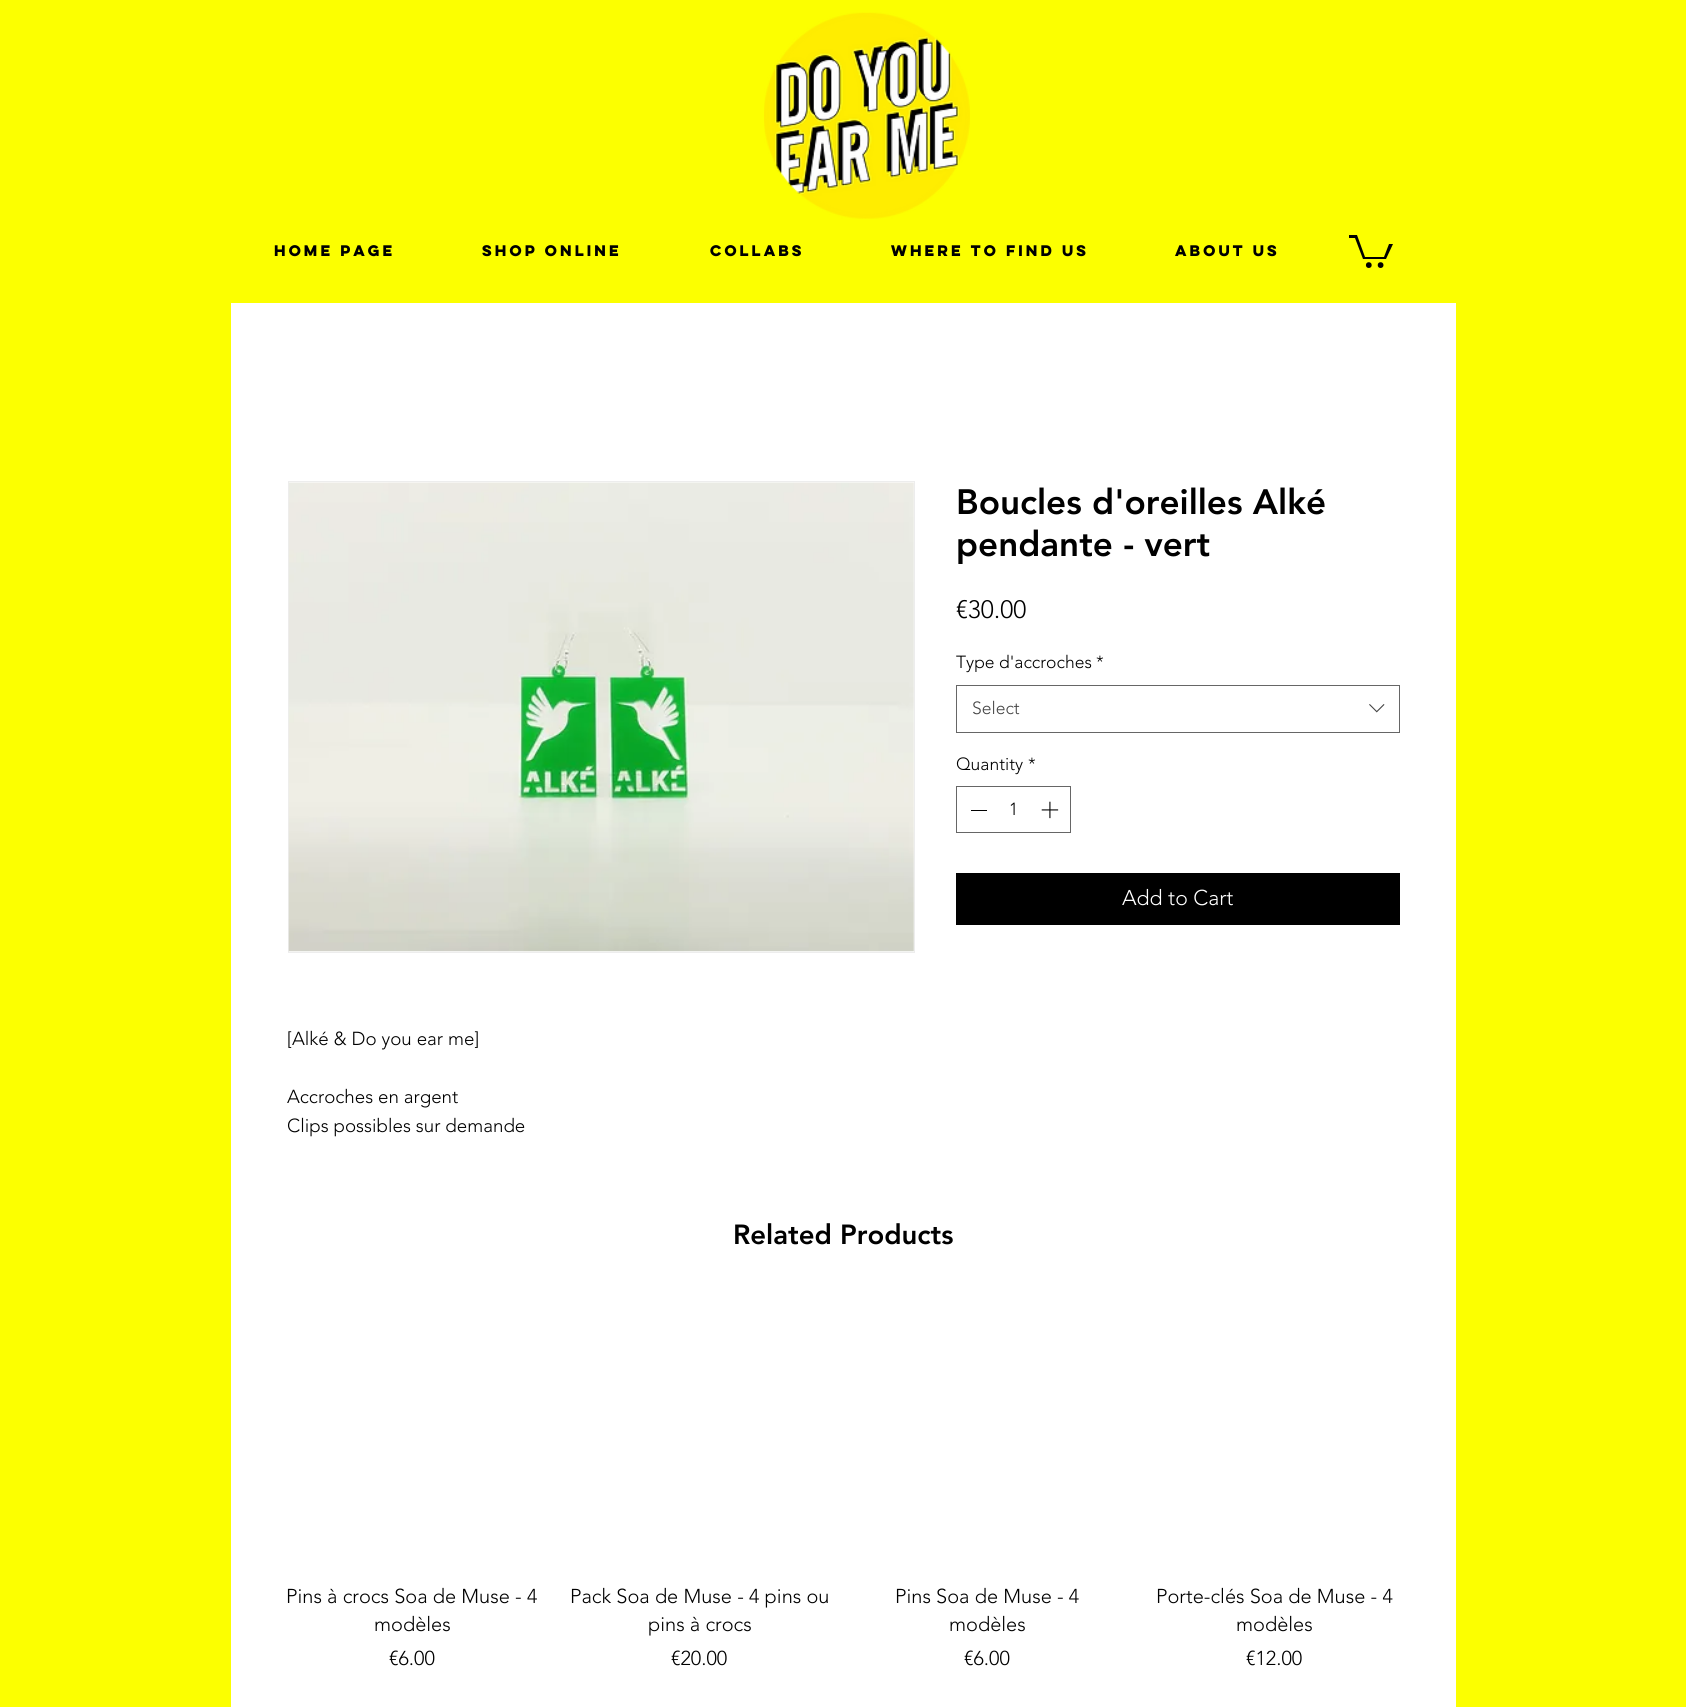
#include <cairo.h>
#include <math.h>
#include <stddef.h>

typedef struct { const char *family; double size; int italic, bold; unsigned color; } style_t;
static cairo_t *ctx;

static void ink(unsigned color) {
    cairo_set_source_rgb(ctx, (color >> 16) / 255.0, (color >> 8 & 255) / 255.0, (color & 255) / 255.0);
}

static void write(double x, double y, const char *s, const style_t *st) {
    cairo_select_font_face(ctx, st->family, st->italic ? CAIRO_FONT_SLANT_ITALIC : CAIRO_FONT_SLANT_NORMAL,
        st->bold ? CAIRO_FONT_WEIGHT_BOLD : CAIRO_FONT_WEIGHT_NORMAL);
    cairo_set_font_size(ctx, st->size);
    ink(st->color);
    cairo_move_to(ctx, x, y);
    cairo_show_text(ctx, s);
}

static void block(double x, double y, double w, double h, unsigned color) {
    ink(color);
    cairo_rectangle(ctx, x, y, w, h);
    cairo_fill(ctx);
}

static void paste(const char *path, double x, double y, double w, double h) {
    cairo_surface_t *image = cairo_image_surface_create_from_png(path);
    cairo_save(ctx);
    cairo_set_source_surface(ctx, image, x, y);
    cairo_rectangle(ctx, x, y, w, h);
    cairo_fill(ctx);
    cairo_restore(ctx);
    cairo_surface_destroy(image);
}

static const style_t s1 = {"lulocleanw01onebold", 13.75, 0, 1, 0x000000};
static const style_t s2 = {"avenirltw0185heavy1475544 Black", 35, 0, 0, 0x000000};
static const style_t s3 = {"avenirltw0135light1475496 Light", 25, 0, 0, 0x000000};
static const style_t s4 = {"avenirltw0135light1475496 Light", 17.5, 0, 0, 0x000000};
static const style_t s5 = {"avenirltw0135light1475496 Light", 17.5, 0, 0, 0x444444};
static const style_t s6 = {"avenirltw0135light1475496 Light", 21.25, 0, 0, 0xffffff};
static const style_t s7 = {"avenirltw0135light1475496 Light", 18.75, 0, 0, 0x000000};
static const style_t s8 = {"avenirltw0185heavy1475544 Black", 27.5, 0, 0, 0x000000};
static const style_t s9 = {"avenirltw0135light1475496 Light", 20, 0, 0, 0x000000};

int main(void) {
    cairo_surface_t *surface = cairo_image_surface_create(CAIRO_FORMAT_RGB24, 1686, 1707);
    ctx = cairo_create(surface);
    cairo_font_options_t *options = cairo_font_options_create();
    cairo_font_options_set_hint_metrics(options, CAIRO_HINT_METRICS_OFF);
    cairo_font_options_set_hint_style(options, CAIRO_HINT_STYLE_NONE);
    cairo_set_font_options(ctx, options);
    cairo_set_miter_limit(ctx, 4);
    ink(0xfcff00);
    cairo_paint(ctx);
    paste("pic1.png", 764, 12, 206, 207);
    write(274, 256, "Home page", &s1);
    write(482, 256, "Shop online", &s1);
    write(710, 256, "Collabs", &s1);
    write(891, 256, "Where to find us", &s1);
    write(1175, 256, "About us", &s1);
    cairo_new_path(ctx);
    cairo_move_to(ctx, 1393, 244);
    cairo_line_to(ctx, 1386, 259);
    cairo_line_to(ctx, 1363, 259);
    cairo_line_to(ctx, 1355, 238);
    cairo_line_to(ctx, 1349, 238);
    cairo_line_to(ctx, 1349, 235);
    cairo_line_to(ctx, 1357, 235);
    cairo_line_to(ctx, 1365, 257);
    cairo_line_to(ctx, 1384, 257);
    cairo_line_to(ctx, 1389, 244);
    cairo_fill(ctx);
    cairo_arc(ctx, 1380.6, 265.1, 2.9, 0, 2 * M_PI);
    cairo_fill(ctx);
    cairo_arc(ctx, 1368.8, 265.1, 2.9, 0, 2 * M_PI);
    cairo_fill(ctx);
    block(231, 303, 1225, 1404, 0xffffff);
    write(956, 514, "Boucles d'oreilles Alké", &s2);
    write(956, 556, "pendante - vert", &s2);
    write(956, 618, "€30.00", &s3);
    write(956, 668, "Type d'accroches", &s4);
    write(1096, 668, "*", &s4);
    cairo_rectangle(ctx, 956.5, 685.5, 443, 47);
    ink(0x666666);
    cairo_set_line_width(ctx, 1);
    cairo_stroke(ctx);
    write(972, 714, "Select", &s5);
    paste("pic2.png", 1369, 704, 16, 9);
    write(956, 770, "Quantity", &s4);
    write(1028, 770, "*", &s4);
    cairo_rectangle(ctx, 956.5, 786.5, 114, 46);
    ink(0x666666);
    cairo_stroke(ctx);
    block(971, 810, 16, 1, 0x000000);
    write(1009, 815, "1", &s4);
    paste("pic3.png", 1041, 801, 18, 18);
    block(956, 873, 444, 52, 0x000000);
    write(1122, 905, "Add to Cart", &s6);
    cairo_rectangle(ctx, 288.5, 481.5, 626, 471);
    ink(0xededed);
    cairo_stroke(ctx);
    paste("pic4.png", 288, 482, 626, 470);
    write(287, 1045, "[Alké & Do you ear me]", &s7);
    write(287, 1103, "Accroches en argent", &s7);
    write(287, 1132, "Clips possibles sur demande", &s7);
    write(733, 1244, "Related Products", &s8);
    write(286, 1603, "Pins à crocs Soa de Muse - 4", &s9);
    write(374, 1631, "modèles", &s9);
    write(389, 1665, "€6.00", &s9);
    write(570, 1603, "Pack Soa de Muse - 4 pins ou", &s9);
    write(648, 1631, "pins à crocs", &s9);
    write(671, 1665, "€20.00", &s9);
    write(895, 1603, "Pins Soa de Muse - 4", &s9);
    write(949, 1631, "modèles", &s9);
    write(964, 1665, "€6.00", &s9);
    write(1156, 1603, "Porte-clés Soa de Muse - 4", &s9);
    write(1236, 1631, "modèles", &s9);
    write(1246, 1665, "€12.00", &s9);
    cairo_surface_write_to_png(surface, "screenshot.png");
    cairo_font_options_destroy(options);
    cairo_destroy(ctx);
    cairo_surface_destroy(surface);
    return 0;
}
